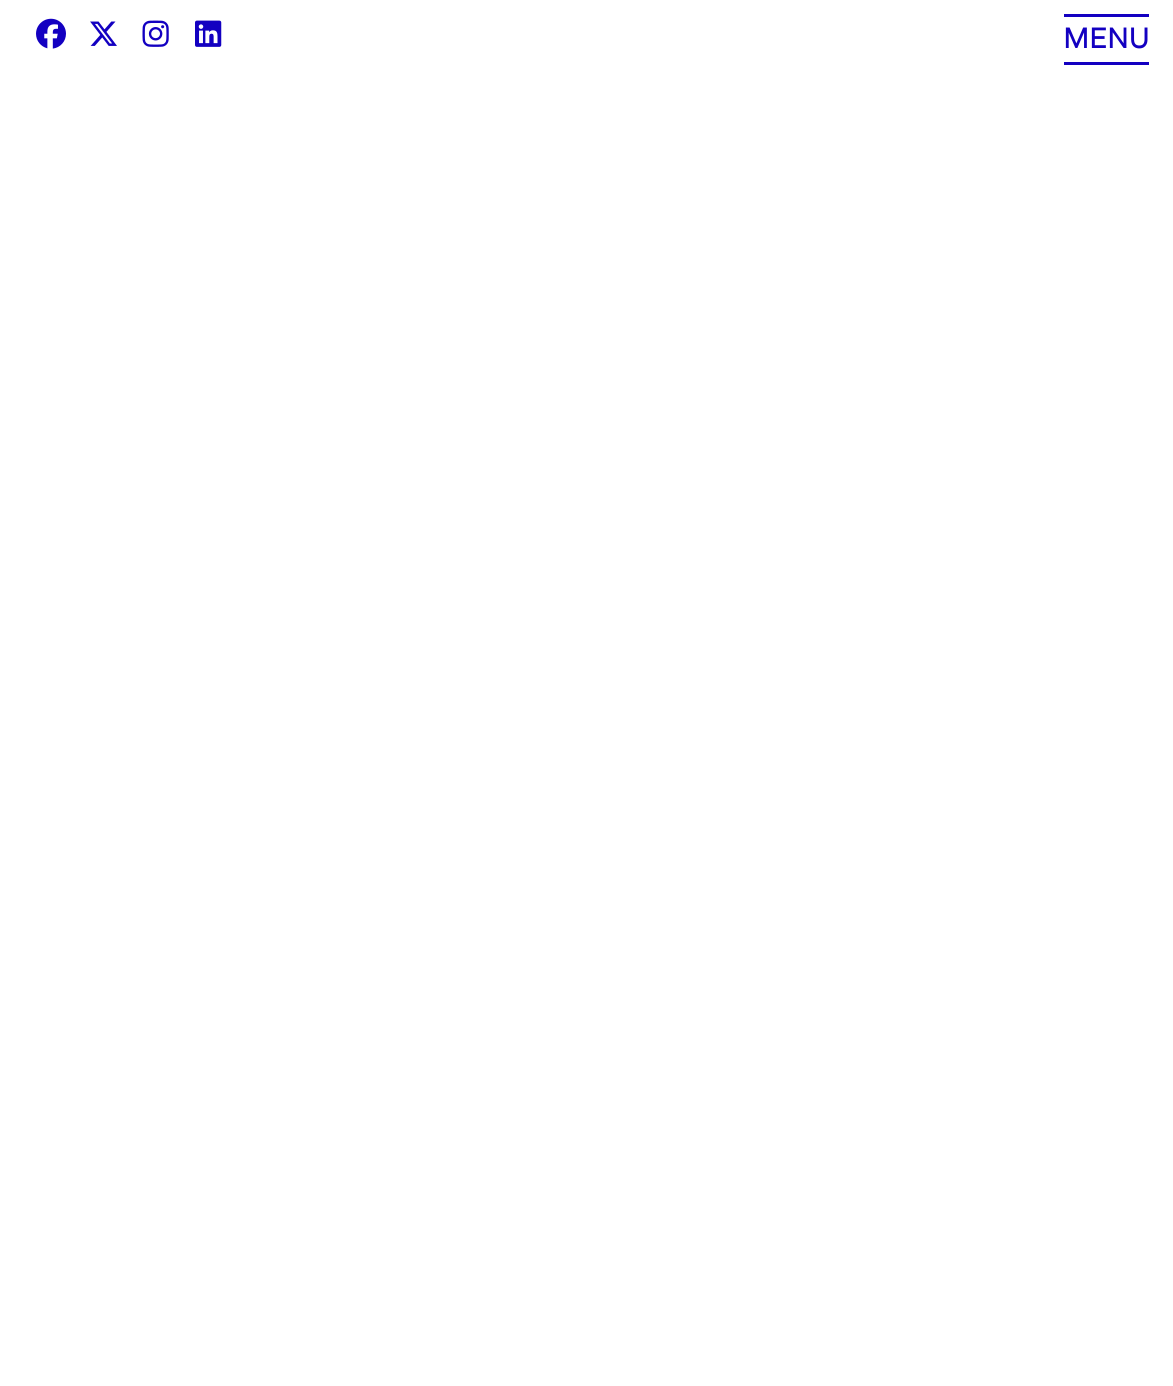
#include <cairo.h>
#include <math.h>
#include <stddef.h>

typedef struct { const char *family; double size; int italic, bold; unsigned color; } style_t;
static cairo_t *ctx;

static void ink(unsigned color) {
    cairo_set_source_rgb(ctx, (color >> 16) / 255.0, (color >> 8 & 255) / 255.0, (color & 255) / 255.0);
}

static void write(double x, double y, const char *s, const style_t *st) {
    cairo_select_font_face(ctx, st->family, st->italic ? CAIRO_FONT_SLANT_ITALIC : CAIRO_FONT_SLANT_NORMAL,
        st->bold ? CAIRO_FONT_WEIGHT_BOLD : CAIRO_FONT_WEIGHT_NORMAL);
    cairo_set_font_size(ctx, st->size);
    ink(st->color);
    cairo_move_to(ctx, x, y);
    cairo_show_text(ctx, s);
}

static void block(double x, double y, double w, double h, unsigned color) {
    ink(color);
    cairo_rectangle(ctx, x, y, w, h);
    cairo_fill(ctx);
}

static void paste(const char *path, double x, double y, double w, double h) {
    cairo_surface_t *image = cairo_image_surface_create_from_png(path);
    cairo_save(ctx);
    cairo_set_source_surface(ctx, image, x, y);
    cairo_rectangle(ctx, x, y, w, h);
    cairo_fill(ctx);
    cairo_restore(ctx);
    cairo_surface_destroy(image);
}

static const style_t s1 = {"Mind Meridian", 29, 0, 1, 0x1300c1};

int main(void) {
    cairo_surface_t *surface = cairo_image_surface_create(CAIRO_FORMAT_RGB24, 1173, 1386);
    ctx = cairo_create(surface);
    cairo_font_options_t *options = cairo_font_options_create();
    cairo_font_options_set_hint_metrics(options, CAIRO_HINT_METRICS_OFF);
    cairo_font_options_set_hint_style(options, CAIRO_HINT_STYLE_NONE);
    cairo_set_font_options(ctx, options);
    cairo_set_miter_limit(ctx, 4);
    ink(0xffffff);
    cairo_paint(ctx);
    paste("pic1.png", 36, 18, 30, 31);
    paste("pic2.png", 90, 21, 27, 25);
    paste("pic3.png", 142, 20, 27, 27);
    paste("pic4.png", 195, 20, 27, 27);
    block(1064, 14, 85, 3, 0x1300c1);
    write(1063, 48, "MENU", &s1);
    block(1064, 62, 85, 3, 0x1300c1);
    cairo_surface_write_to_png(surface, "screenshot.png");
    cairo_font_options_destroy(options);
    cairo_destroy(ctx);
    cairo_surface_destroy(surface);
    return 0;
}
